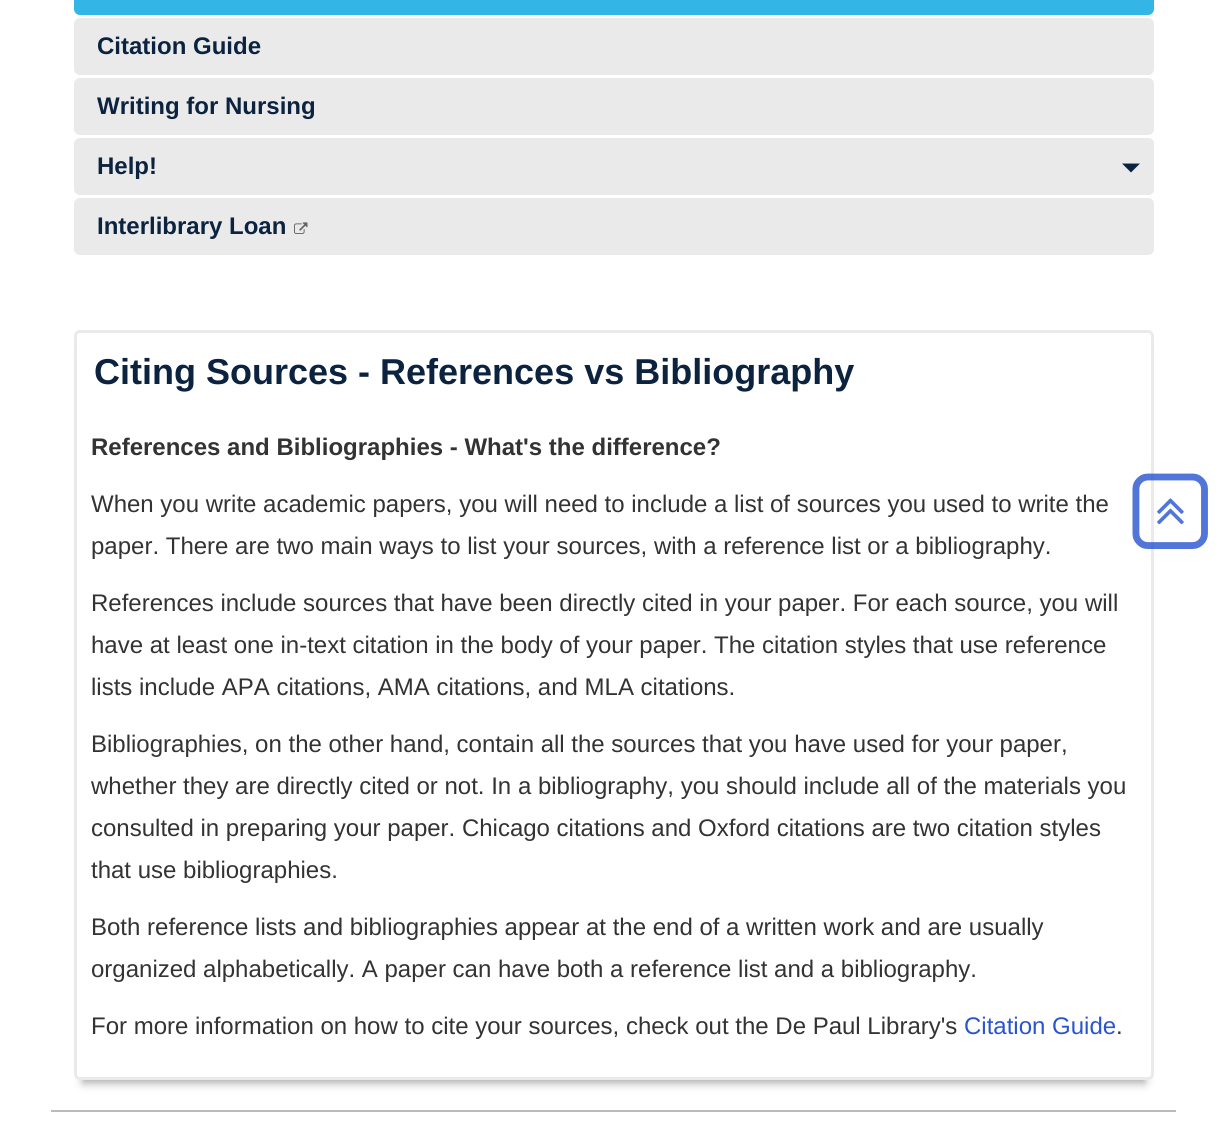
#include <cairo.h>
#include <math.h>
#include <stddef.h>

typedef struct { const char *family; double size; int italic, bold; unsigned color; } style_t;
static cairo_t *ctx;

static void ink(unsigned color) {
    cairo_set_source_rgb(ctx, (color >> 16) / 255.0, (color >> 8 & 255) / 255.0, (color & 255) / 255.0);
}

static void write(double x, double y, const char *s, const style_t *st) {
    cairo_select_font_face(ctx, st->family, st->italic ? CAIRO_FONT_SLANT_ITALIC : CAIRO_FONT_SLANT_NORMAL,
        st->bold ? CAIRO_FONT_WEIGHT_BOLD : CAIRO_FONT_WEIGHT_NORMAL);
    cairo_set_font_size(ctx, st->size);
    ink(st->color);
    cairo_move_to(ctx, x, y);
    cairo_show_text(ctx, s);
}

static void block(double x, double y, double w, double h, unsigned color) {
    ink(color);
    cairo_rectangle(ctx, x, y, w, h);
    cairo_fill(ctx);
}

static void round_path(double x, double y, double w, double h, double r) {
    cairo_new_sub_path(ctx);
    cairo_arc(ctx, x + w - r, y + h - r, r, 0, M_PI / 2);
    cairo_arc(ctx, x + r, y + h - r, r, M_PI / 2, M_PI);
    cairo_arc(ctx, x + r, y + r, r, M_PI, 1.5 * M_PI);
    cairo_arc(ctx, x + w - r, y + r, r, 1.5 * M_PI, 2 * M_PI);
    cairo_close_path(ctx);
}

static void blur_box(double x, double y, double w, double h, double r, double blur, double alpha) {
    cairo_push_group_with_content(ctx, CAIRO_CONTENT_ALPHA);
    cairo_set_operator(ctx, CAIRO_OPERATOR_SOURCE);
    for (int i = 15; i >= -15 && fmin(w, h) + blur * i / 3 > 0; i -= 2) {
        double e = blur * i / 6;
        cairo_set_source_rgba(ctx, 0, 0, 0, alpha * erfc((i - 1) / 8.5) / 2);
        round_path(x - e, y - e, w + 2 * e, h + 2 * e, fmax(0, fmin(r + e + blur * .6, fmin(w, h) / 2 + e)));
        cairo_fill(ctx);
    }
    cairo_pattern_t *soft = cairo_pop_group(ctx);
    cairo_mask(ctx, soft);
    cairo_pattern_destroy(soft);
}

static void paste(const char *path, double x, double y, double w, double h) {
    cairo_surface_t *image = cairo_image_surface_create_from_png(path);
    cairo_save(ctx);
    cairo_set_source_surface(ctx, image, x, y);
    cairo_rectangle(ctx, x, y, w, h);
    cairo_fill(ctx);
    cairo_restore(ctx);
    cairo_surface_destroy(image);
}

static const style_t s1 = {"Liberation Sans", 24, 0, 1, 0x0c2340};
static const style_t s2 = {"Liberation Sans", 36, 0, 1, 0x0c2340};
static const style_t s3 = {"Liberation Sans", 24, 0, 1, 0x333333};
static const style_t s4 = {"Liberation Sans", 24, 0, 0, 0x333333};
static const style_t s5 = {"Liberation Sans", 24, 0, 0, 0x2954d1};

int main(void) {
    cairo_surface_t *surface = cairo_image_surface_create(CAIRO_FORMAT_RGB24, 1225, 1123);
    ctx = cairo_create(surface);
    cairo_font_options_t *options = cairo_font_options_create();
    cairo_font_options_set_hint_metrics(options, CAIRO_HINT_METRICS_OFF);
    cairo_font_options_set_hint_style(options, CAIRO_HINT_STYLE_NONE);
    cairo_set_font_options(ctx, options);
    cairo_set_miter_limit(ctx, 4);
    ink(0xffffff);
    cairo_paint(ctx);
    ink(0x33b5e5);
    round_path(74, -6, 1080, 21, 6);
    cairo_fill(ctx);
    ink(0xeaeaea);
    round_path(74, 18, 1080, 57, 6);
    cairo_fill(ctx);
    write(97, 54, "Citation Guide", &s1);
    ink(0xeaeaea);
    round_path(74, 78, 1080, 57, 6);
    cairo_fill(ctx);
    write(97, 114, "Writing for Nursing", &s1);
    ink(0xeaeaea);
    round_path(74, 138, 1080, 57, 6);
    cairo_fill(ctx);
    write(97, 174, "Help!", &s1);
    ink(0xeaeaea);
    cairo_new_path(ctx);
    cairo_move_to(ctx, 1106, 138);
    cairo_line_to(ctx, 1148, 138);
    cairo_curve_to(ctx, 1151.5, 138, 1154, 140.5, 1154, 144);
    cairo_line_to(ctx, 1154, 189);
    cairo_curve_to(ctx, 1154, 192.5, 1151.5, 195, 1148, 195);
    cairo_line_to(ctx, 1106, 195);
    cairo_close_path(ctx);
    cairo_fill(ctx);
    ink(0x0c2340);
    cairo_new_path(ctx);
    cairo_move_to(ctx, 1122, 163.5);
    cairo_line_to(ctx, 1140, 163.5);
    cairo_line_to(ctx, 1131, 172.5);
    cairo_close_path(ctx);
    cairo_fill(ctx);
    ink(0xeaeaea);
    round_path(74, 198, 1080, 57, 6);
    cairo_fill(ctx);
    write(97, 234, "Interlibrary Loan", &s1);
    paste("pic1.png", 294, 222, 14, 12);
    ink(0xaaaaaa);
    blur_box(83, 351, 1062, 732, 0, 4.5, 1);
    ink(0xffffff);
    round_path(75.5, 331.5, 1077, 747, 4.5);
    cairo_fill_preserve(ctx);
    ink(0xeaeaea);
    cairo_set_line_width(ctx, 3);
    cairo_stroke(ctx);
    write(94, 384, "Citing Sources - References vs Bibliography", &s2);
    write(91, 455, "References and Bibliographies - What's the difference?", &s3);
    write(91, 512, "When you write academic papers, you will need to include a list of sources you used to write the", &s4);
    write(91, 554, "paper. There are two main ways to list your sources, with a reference list or a bibliography.", &s4);
    write(91, 611, "References include sources that have been directly cited in your paper. For each source, you will", &s4);
    write(91, 653, "have at least one in-text citation in the body of your paper. The citation styles that use reference", &s4);
    write(91, 695, "lists include APA citations, AMA citations, and MLA citations.", &s4);
    write(91, 752, "Bibliographies, on the other hand, contain all the sources that you have used for your paper,", &s4);
    write(91, 794, "whether they are directly cited or not. In a bibliography, you should include all of the materials you", &s4);
    write(91, 836, "consulted in preparing your paper. Chicago citations and Oxford citations are two citation styles", &s4);
    write(91, 878, "that use bibliographies.", &s4);
    write(91, 935, "Both reference lists and bibliographies appear at the end of a written work and are usually", &s4);
    write(91, 977, "organized alphabetically. A paper can have both a reference list and a bibliography.", &s4);
    write(91, 1034, "For more information on how to cite your sources, check out the De Paul Library's", &s4);
    write(964, 1034, "Citation Guide", &s5);
    write(1116, 1034, ".", &s4);
    paste("pic2.png", 1132, 473, 76, 76);
    paste("pic3.png", 1157, 498, 27, 27);
    block(51, 1110, 1125, 2, 0xbbbbbb);
    cairo_surface_write_to_png(surface, "screenshot.png");
    cairo_font_options_destroy(options);
    cairo_destroy(ctx);
    cairo_surface_destroy(surface);
    return 0;
}
